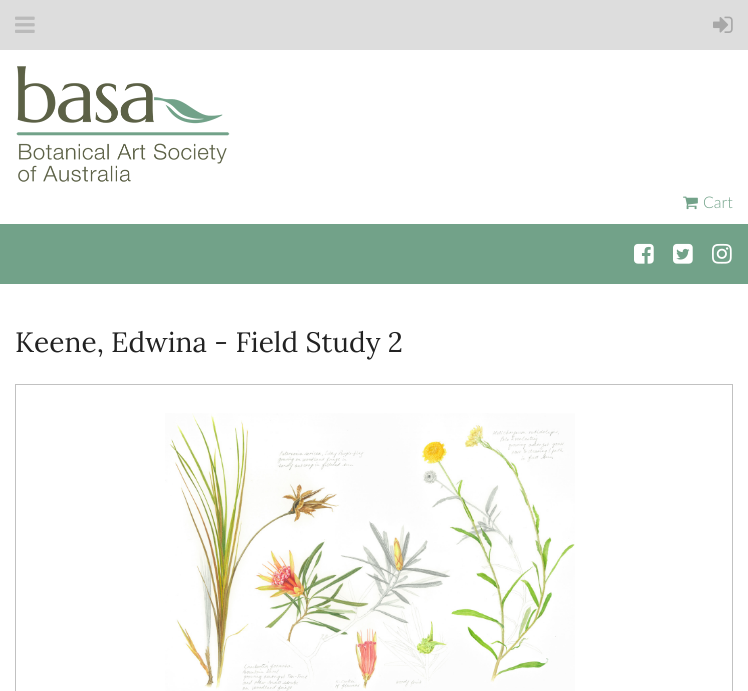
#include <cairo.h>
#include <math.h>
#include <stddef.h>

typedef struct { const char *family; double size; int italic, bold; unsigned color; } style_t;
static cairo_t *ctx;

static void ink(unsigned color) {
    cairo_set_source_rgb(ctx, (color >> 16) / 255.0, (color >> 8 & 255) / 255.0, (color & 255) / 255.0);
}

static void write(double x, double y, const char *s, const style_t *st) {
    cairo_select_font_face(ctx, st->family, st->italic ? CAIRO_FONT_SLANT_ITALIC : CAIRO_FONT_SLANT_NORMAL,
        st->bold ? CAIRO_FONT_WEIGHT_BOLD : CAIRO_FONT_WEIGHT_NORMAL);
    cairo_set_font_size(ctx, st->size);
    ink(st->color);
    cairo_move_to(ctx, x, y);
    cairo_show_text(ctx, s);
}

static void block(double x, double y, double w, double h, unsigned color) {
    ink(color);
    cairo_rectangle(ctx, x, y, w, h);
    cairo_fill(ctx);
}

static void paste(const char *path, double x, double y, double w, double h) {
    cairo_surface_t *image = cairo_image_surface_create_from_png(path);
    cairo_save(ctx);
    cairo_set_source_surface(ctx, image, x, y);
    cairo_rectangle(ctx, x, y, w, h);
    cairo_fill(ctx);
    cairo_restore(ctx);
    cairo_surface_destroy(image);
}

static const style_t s1 = {"Lato Light", 16, 0, 0, 0x72a289};
static const style_t s2 = {"Lora", 28, 0, 0, 0x222222};

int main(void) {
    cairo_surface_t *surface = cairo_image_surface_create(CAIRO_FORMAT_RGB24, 748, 691);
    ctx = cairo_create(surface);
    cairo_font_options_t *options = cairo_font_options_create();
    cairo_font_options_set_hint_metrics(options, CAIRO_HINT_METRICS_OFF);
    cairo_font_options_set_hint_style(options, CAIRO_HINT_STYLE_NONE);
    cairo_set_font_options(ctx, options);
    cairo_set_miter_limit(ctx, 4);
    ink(0xffffff);
    cairo_paint(ctx);
    block(0, 0, 748, 50, 0xdddddd);
    paste("pic1.png", 15, 16, 20, 17);
    paste("pic2.png", 713, 16, 20, 17);
    paste("pic3.png", 16, 66, 214, 116);
    paste("pic4.png", 683, 196, 15, 14);
    write(703, 208, "Cart", &s1);
    block(0, 224, 748, 60, 0x72a289);
    paste("pic5.png", 634, 243, 20, 21);
    paste("pic6.png", 673, 243, 20, 21);
    paste("pic7.png", 712, 243, 20, 21);
    write(15, 352, "Keene, Edwina - Field Study 2", &s2);
    cairo_rectangle(ctx, 15.5, 384.5, 717, 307);
    ink(0xc1c1c1);
    cairo_set_line_width(ctx, 1);
    cairo_stroke(ctx);
    paste("pic8.png", 165, 413, 410, 278);
    cairo_surface_write_to_png(surface, "screenshot.png");
    cairo_font_options_destroy(options);
    cairo_destroy(ctx);
    cairo_surface_destroy(surface);
    return 0;
}
